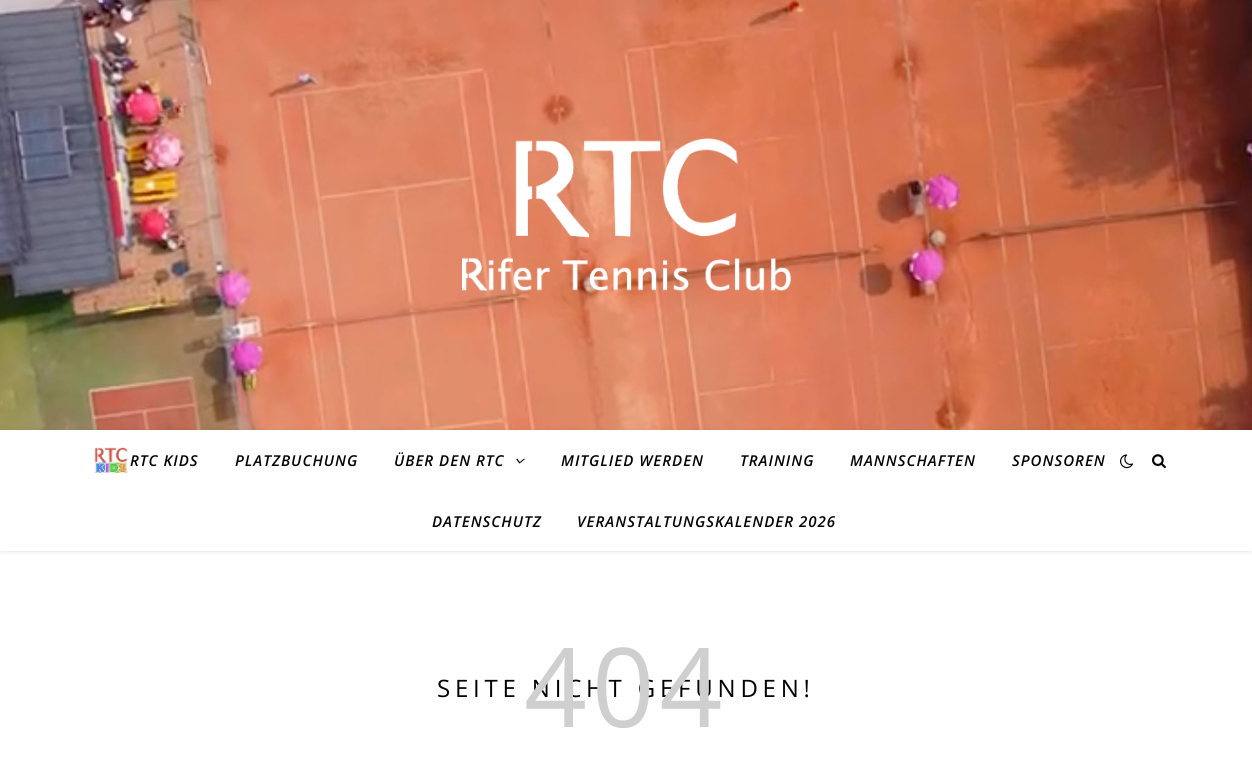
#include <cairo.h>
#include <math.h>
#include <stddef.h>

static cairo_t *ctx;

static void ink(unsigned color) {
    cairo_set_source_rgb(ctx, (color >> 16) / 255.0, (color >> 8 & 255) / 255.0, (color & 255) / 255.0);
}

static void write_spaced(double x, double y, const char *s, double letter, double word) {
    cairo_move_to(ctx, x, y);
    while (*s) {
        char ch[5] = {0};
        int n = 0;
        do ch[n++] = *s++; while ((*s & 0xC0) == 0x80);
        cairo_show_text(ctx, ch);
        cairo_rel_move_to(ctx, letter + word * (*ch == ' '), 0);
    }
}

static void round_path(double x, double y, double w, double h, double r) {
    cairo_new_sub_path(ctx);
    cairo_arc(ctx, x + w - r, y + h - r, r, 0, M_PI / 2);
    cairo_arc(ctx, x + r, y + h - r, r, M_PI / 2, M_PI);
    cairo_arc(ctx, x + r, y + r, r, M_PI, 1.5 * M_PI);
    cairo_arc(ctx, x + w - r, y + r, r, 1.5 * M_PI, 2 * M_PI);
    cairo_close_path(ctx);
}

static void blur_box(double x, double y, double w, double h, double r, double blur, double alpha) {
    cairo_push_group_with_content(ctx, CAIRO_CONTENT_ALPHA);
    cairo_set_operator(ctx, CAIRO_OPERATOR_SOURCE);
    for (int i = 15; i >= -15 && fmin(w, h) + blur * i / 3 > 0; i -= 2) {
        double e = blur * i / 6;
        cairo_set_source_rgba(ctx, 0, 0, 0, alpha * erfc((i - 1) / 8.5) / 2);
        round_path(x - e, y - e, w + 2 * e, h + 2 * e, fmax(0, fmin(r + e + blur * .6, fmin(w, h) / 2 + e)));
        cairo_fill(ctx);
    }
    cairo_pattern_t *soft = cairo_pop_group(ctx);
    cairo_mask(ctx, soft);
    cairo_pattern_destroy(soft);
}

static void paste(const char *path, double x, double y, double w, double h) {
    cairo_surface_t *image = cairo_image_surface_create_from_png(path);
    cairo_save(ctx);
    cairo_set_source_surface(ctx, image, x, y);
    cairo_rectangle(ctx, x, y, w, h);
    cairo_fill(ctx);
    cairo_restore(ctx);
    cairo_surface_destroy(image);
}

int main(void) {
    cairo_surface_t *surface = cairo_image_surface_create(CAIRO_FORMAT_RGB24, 1252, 769);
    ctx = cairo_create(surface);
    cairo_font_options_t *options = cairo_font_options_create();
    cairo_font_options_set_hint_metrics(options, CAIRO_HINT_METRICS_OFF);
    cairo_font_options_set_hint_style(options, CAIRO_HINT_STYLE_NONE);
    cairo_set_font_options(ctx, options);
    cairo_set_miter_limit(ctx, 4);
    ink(0xffffff);
    cairo_paint(ctx);
    paste("pic1.png", 0, 0, 1252, 430);
    paste("pic2.png", 462, 138, 329, 154);
    cairo_save(ctx);
    cairo_set_fill_rule(ctx, CAIRO_FILL_RULE_EVEN_ODD);
    cairo_new_path(ctx);
    cairo_move_to(ctx, 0, 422);
    cairo_line_to(ctx, 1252, 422);
    cairo_line_to(ctx, 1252, 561);
    cairo_line_to(ctx, 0, 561);
    cairo_close_path(ctx);
    cairo_move_to(ctx, 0, 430);
    cairo_line_to(ctx, 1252, 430);
    cairo_line_to(ctx, 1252, 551);
    cairo_line_to(ctx, 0, 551);
    cairo_close_path(ctx);
    cairo_clip(ctx);
    ink(0x000000);
    blur_box(0, 431, 1252, 121, 0, 2.5, 0.1);
    cairo_restore(ctx);
    paste("pic3.png", 94, 447, 34, 26);
    cairo_select_font_face(ctx, "Open Sans SemiBold", CAIRO_FONT_SLANT_ITALIC, CAIRO_FONT_WEIGHT_NORMAL);
    cairo_set_font_size(ctx, 15);
    ink(0x030303);
    write_spaced(130, 466, "RTC KIDS", 1, 0);
    write_spaced(235, 466, "PLATZBUCHUNG", 1, 0);
    write_spaced(394, 466, "ÜBER DEN RTC", 1, 0);
    paste("pic4.png", 516, 458, 9, 6);
    write_spaced(561, 466, "MITGLIED WERDEN", 1, 0);
    write_spaced(740, 466, "TRAINING", 1, 0);
    write_spaced(850, 466, "MANNSCHAFTEN", 1, 0);
    write_spaced(1012, 466, "SPONSOREN", 1, 0);
    write_spaced(432, 527, "DATENSCHUTZ", 1, 0);
    write_spaced(577, 527, "VERANSTALTUNGSKALENDER 2026", 1, 0);
    paste("pic5.png", 1120, 454, 14, 15);
    paste("pic6.png", 1152, 454, 14, 15);
    cairo_select_font_face(ctx, "Open Sans", CAIRO_FONT_SLANT_NORMAL, CAIRO_FONT_WEIGHT_NORMAL);
    cairo_set_font_size(ctx, 24);
    write_spaced(437, 697, "SEITE NICHT GEFUNDEN!", 4.8, 0);
    cairo_set_font_size(ctx, 110);
    ink(0xcfcfcf);
    write_spaced(524, 727, "404", 4.8, 0);
    cairo_surface_write_to_png(surface, "screenshot.png");
    cairo_font_options_destroy(options);
    cairo_destroy(ctx);
    cairo_surface_destroy(surface);
    return 0;
}
